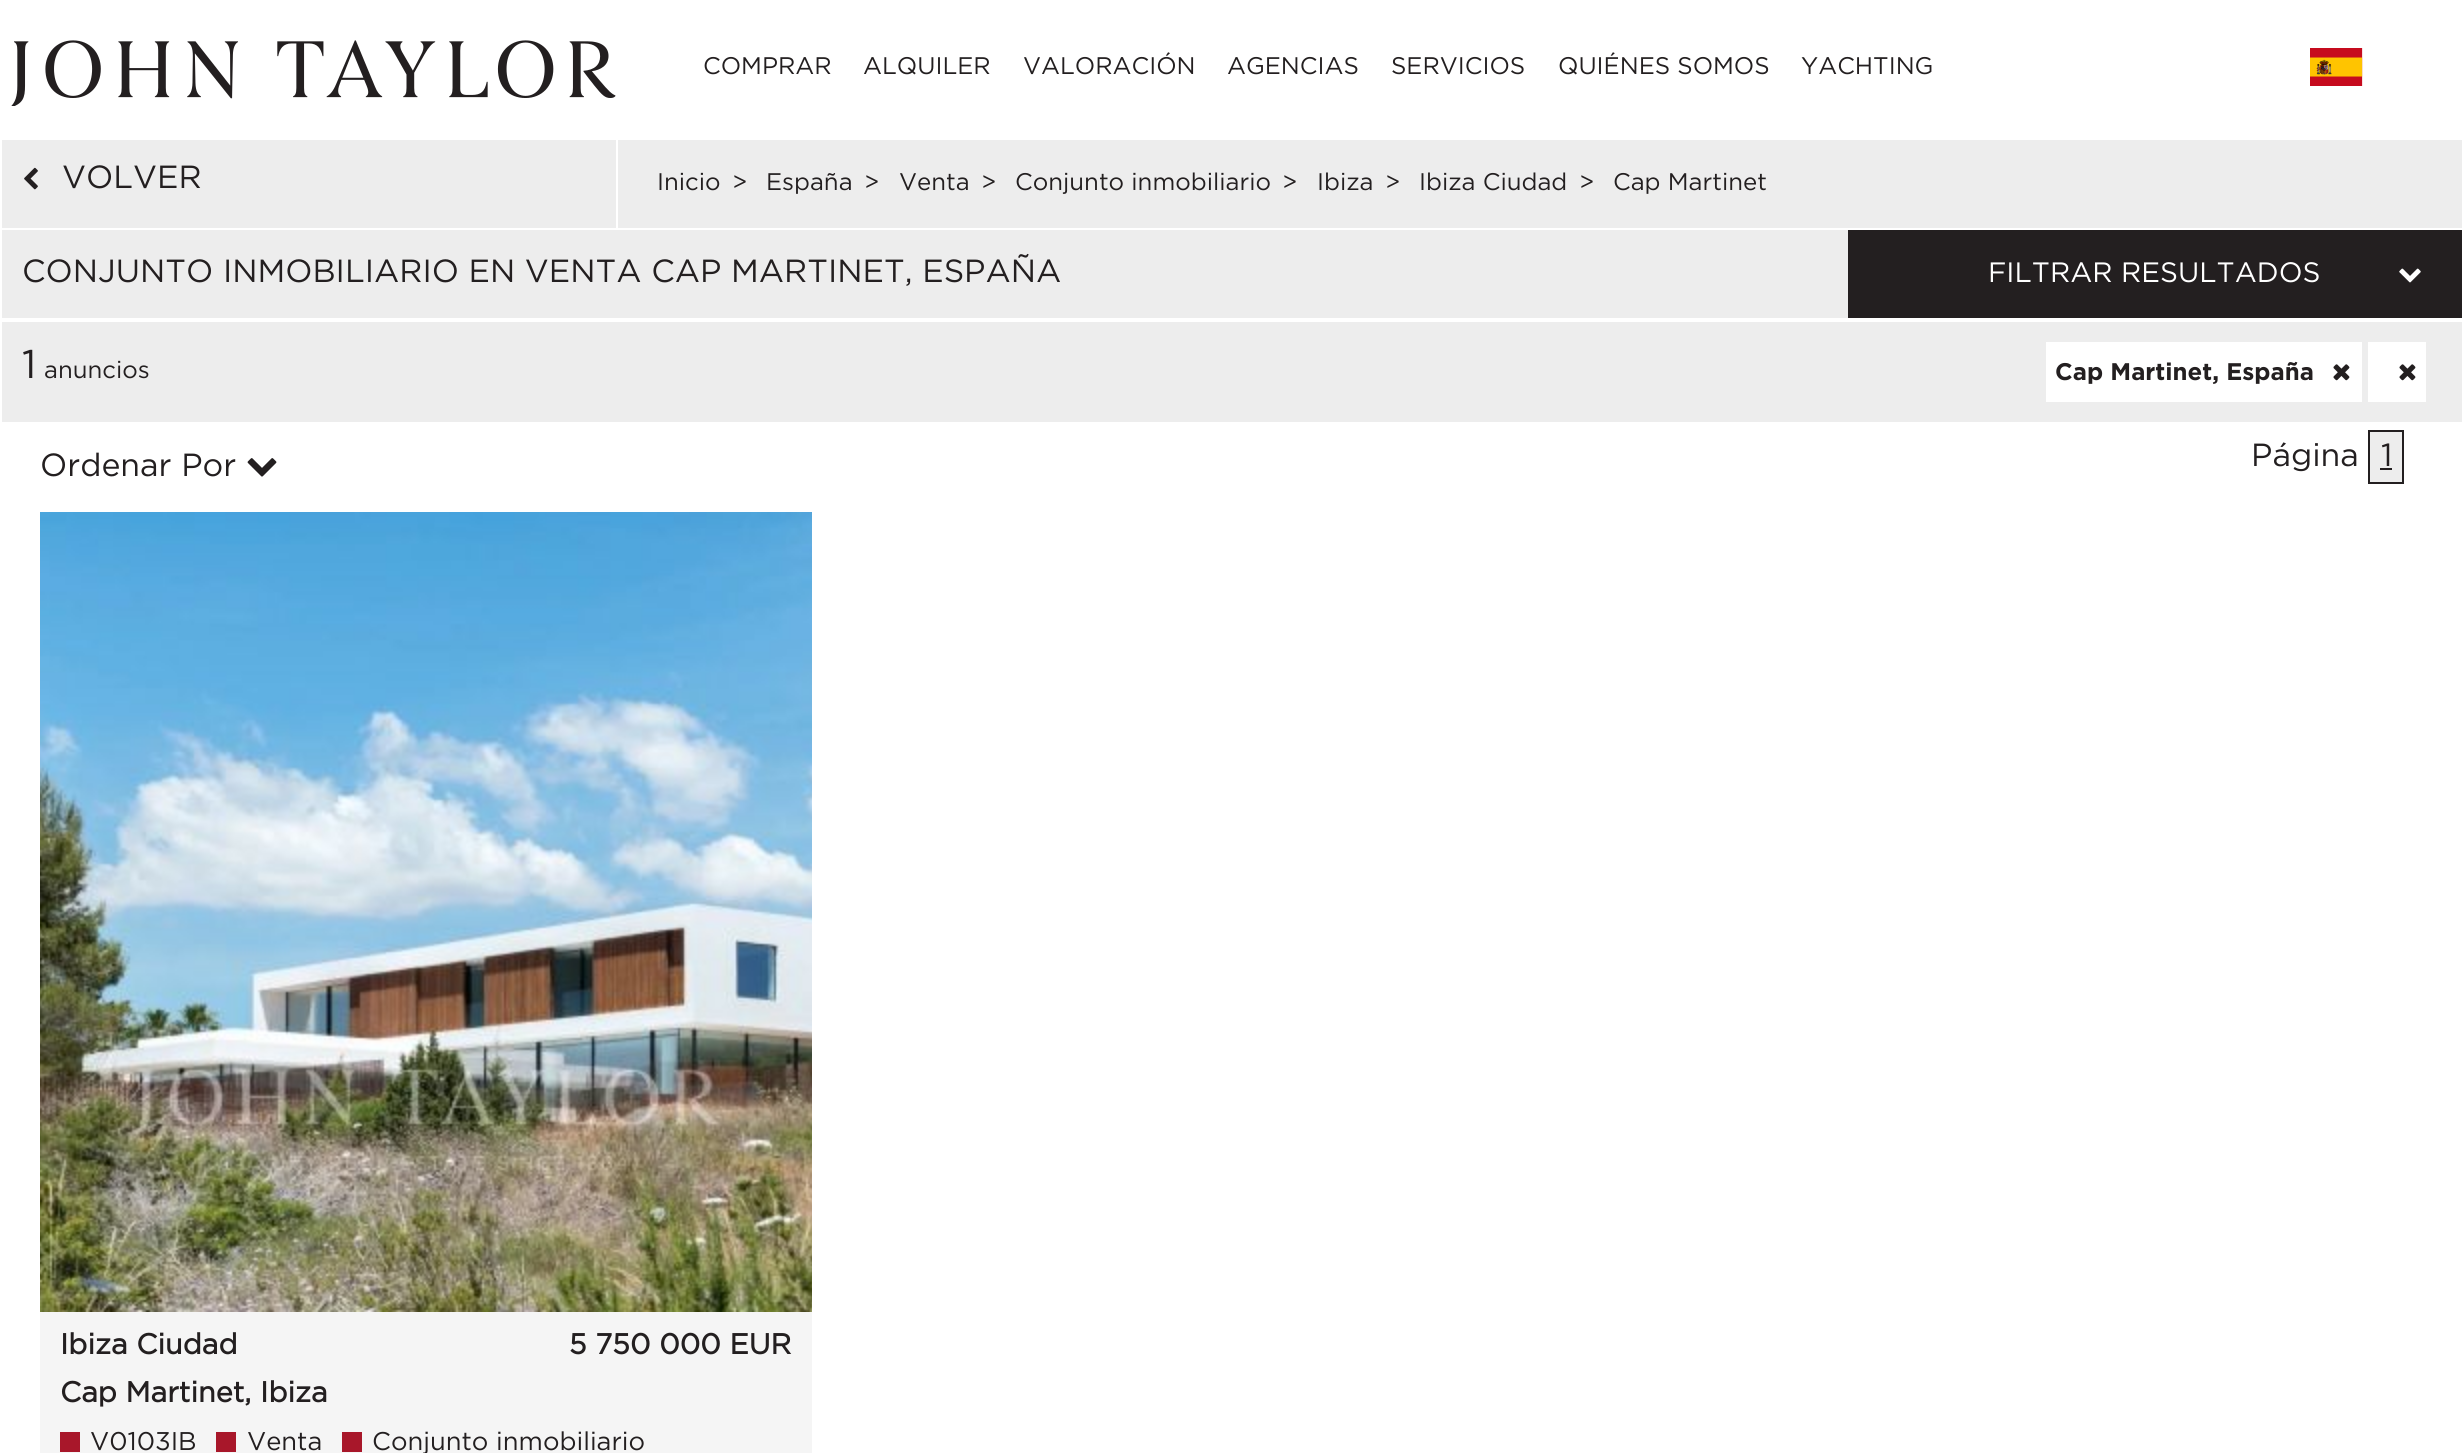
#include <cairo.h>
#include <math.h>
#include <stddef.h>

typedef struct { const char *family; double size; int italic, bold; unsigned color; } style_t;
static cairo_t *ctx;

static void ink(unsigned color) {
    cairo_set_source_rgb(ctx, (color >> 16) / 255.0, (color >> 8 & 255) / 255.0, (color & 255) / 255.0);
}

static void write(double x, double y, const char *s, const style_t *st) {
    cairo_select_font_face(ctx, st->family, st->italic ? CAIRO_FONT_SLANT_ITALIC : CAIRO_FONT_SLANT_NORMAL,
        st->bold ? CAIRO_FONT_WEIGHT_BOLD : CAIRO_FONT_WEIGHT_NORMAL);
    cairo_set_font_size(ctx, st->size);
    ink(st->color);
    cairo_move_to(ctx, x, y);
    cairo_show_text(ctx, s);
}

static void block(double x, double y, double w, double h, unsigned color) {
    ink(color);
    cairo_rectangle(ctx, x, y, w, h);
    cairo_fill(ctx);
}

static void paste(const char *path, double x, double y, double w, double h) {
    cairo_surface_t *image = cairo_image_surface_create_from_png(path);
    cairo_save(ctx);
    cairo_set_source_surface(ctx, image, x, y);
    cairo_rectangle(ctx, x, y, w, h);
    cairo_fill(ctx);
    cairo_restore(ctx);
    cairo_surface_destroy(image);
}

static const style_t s1 = {"Gotham", 24, 0, 0, 0x231f20};
static const style_t s2 = {"Gotham", 32, 0, 0, 0x231f20};
static const style_t s3 = {"Gotham", 28, 0, 0, 0xffffff};
static const style_t s4 = {"Gotham", 40, 0, 0, 0x231f20};
static const style_t s5 = {"Gotham", 24, 0, 1, 0x231f20};
static const style_t s6 = {"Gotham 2", 28.75, 0, 1, 0x231f20};
static const style_t s7 = {"Gotham", 25.6, 0, 0, 0x231f20};

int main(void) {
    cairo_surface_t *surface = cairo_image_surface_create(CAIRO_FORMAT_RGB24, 2463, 1453);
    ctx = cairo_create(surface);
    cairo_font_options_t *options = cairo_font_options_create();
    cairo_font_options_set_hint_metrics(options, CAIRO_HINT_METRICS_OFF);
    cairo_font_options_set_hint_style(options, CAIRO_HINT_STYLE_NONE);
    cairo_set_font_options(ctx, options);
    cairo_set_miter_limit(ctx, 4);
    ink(0xffffff);
    cairo_paint(ctx);
    paste("pic1.png", 11, 40, 605, 66);
    write(703, 74, "COMPRAR", &s1);
    write(863, 74, "ALQUILER", &s1);
    write(1023, 74, "VALORACIÓN", &s1);
    write(1227, 74, "AGENCIAS", &s1);
    write(1391, 74, "SERVICIOS", &s1);
    write(1558, 74, "QUIÉNES SOMOS", &s1);
    write(1801, 74, "YACHTING", &s1);
    paste("pic2.png", 2310, 48, 53, 38);
    block(2, 140, 2460, 282, 0xededed);
    block(2, 228, 2460, 2, 0xffffff);
    block(616, 140, 2, 88, 0xffffff);
    paste("pic3.png", 24, 167, 14, 23);
    write(62, 188, "VOLVER", &s2);
    write(657, 190, "Inicio", &s1);
    write(732, 190, ">", &s1);
    write(766, 190, "España", &s1);
    write(864, 190, ">", &s1);
    write(899, 190, "Venta", &s1);
    write(981, 190, ">", &s1);
    write(1015, 190, "Conjunto inmobiliario", &s1);
    write(1282, 190, ">", &s1);
    write(1317, 190, "Ibiza", &s1);
    write(1385, 190, ">", &s1);
    write(1419, 190, "Ibiza Ciudad", &s1);
    write(1579, 190, ">", &s1);
    write(1613, 190, "Cap Martinet", &s1);
    block(2, 318, 2460, 4, 0xffffff);
    write(22, 282, "CONJUNTO INMOBILIARIO EN VENTA CAP MARTINET, ESPAÑA", &s2);
    block(1848, 230, 614, 88, 0x231f20);
    write(1988, 282, "FILTRAR RESULTADOS", &s3);
    paste("pic4.png", 2399, 268, 22, 15);
    write(22, 378, "1", &s4);
    write(44, 378, "anuncios", &s1);
    block(2046, 342, 316, 60, 0xffffff);
    write(2055, 380, "Cap Martinet, España", &s5);
    paste("pic5.png", 2333, 364, 17, 17);
    block(2368, 342, 58, 60, 0xffffff);
    paste("pic5.png", 2399, 364, 17, 17);
    write(40, 476, "Ordenar Por", &s2);
    paste("pic6.png", 247, 458, 30, 19);
    write(2251, 466, "Página", &s2);
    ink(0xededed);
    cairo_rectangle(ctx, 2369, 431, 34, 52);
    cairo_fill_preserve(ctx);
    ink(0x231f20);
    cairo_stroke(ctx);
    write(2381, 466, "1", &s2);
    block(2380, 468, 12, 2, 0x231f20);
    block(40, 1312, 772, 141, 0xf5f5f5);
    paste("pic7.png", 40, 512, 772, 800);
    write(60, 1354, "Ibiza Ciudad", &s6);
    write(60, 1402, "Cap Martinet, Ibiza", &s6);
    write(569, 1354, "5 750 000 EUR", &s6);
    block(60, 1432, 20, 20, 0xa8172a);
    write(90, 1450, "V0103IB", &s7);
    block(216, 1432, 20, 20, 0xa8172a);
    write(247, 1450, "Venta", &s7);
    block(342, 1432, 20, 20, 0xa8172a);
    write(372, 1450, "Conjunto inmobiliario", &s7);
    cairo_surface_write_to_png(surface, "screenshot.png");
    cairo_font_options_destroy(options);
    cairo_destroy(ctx);
    cairo_surface_destroy(surface);
    return 0;
}
